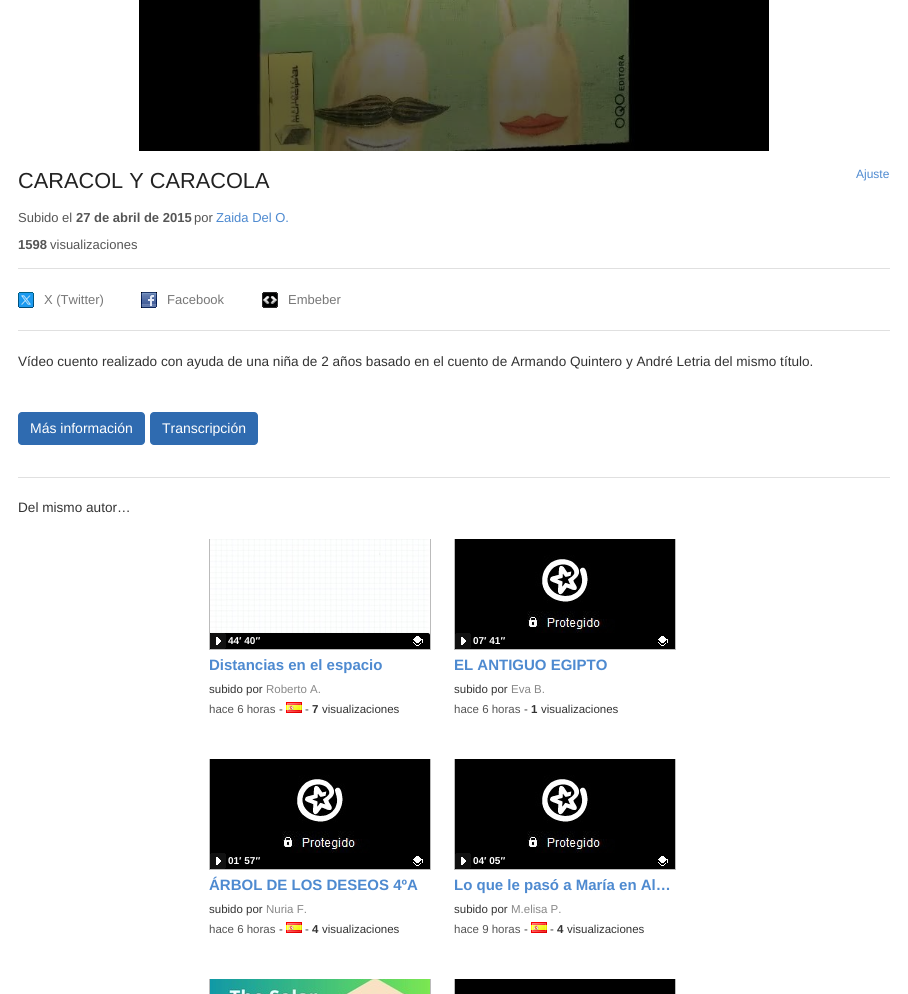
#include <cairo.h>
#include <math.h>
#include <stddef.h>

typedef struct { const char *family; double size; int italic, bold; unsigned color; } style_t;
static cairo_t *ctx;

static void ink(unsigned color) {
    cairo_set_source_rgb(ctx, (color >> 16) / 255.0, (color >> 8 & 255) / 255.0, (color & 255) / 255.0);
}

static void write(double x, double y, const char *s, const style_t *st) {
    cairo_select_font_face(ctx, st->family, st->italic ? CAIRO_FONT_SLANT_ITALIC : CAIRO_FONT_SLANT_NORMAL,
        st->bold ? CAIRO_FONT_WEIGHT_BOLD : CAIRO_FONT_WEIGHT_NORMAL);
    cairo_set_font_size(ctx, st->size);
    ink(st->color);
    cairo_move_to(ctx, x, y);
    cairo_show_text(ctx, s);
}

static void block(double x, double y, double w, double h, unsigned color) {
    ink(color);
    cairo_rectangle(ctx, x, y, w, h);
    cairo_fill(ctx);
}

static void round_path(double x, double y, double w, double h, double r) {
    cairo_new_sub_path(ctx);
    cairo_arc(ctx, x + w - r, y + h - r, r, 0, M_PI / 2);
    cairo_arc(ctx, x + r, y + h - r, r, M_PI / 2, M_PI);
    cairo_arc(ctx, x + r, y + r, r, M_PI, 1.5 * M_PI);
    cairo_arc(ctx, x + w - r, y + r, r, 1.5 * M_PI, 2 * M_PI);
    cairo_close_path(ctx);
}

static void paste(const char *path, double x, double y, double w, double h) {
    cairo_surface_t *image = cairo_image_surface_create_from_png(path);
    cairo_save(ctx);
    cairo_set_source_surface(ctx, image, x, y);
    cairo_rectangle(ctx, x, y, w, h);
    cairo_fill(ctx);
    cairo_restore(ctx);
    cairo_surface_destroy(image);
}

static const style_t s1 = {"Liberation Sans", 21.75, 0, 0, 0x222222};
static const style_t s2 = {"Liberation Sans", 12, 0, 0, 0x4e8ad0};
static const style_t s3 = {"Liberation Sans", 13, 0, 0, 0x555555};
static const style_t s4 = {"Liberation Sans", 13, 0, 1, 0x555555};
static const style_t s5 = {"Liberation Sans", 13, 0, 0, 0x4e8ad0};
static const style_t s6 = {"Liberation Sans", 13, 0, 0, 0x777777};
static const style_t s7 = {"Liberation Sans", 13.6, 0, 0, 0x333333};
static const style_t s8 = {"Liberation Sans", 14, 0, 0, 0xffffff};
static const style_t s9 = {"Liberation Sans", 10, 0, 1, 0xffffff};
static const style_t s10 = {"Liberation Sans", 11.5, 0, 0, 0x333333};
static const style_t s11 = {"Liberation Sans", 11.5, 0, 0, 0x888888};
static const style_t s12 = {"Liberation Sans", 11.5, 0, 0, 0x555555};
static const style_t s13 = {"Liberation Sans", 11.5, 0, 1, 0x333333};
static const style_t s14 = {"Liberation Sans", 15, 0, 1, 0x4e8ad0};

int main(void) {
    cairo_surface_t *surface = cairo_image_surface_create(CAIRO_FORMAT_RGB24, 908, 994);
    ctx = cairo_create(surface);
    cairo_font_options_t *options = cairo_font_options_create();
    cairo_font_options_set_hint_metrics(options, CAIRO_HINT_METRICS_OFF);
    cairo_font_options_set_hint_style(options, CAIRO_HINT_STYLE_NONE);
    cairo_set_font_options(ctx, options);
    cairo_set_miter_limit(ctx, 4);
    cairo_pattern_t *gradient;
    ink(0xffffff);
    cairo_paint(ctx);
    block(139, 0, 630, 151, 0x000000);
    paste("pic1.png", 257, 0, 378, 151);
    gradient = cairo_pattern_create_linear(454, -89, 454, 151);
    cairo_pattern_add_color_stop_rgba(gradient, 0, 0, 0, 0, 0);
    cairo_pattern_add_color_stop_rgba(gradient, 0.77, 0, 0, 0, 0.4);
    cairo_pattern_add_color_stop_rgba(gradient, 1, 0, 0, 0, 0.4);
    cairo_set_source(ctx, gradient);
    cairo_pattern_destroy(gradient);
    cairo_rectangle(ctx, 258, 0, 372, 151);
    cairo_fill(ctx);
    write(18, 188, "CARACOL Y CARACOLA", &s1);
    write(856, 178, "Ajuste", &s2);
    block(18, 268, 872, 1, 0xe0e0e0);
    write(18, 222, "Subido el", &s3);
    write(76, 222, "27 de abril de 2015", &s4);
    write(194, 222, "por", &s3);
    write(216, 222, "Zaida Del O.", &s5);
    write(18, 249, "1598", &s4);
    write(50, 249, "visualizaciones", &s3);
    block(18, 330, 872, 1, 0xe0e0e0);
    paste("pic2.png", 18, 292, 16, 16);
    write(44, 304, "X (Twitter)", &s6);
    paste("pic3.png", 141, 292, 16, 16);
    write(167, 304, "Facebook", &s6);
    paste("pic4.png", 262, 292, 16, 16);
    write(288, 304, "Embeber", &s6);
    write(18, 366, "Vídeo cuento realizado con ayuda de una niña de 2 años basado en el cuento de Armando Quintero y André Letria del mismo título.", &s7);
    ink(0x2f6bb0);
    round_path(18, 412, 127, 33, 4);
    cairo_fill(ctx);
    write(30, 433, "Más información", &s8);
    ink(0x2f6bb0);
    round_path(150, 412, 108, 33, 4);
    cairo_fill(ctx);
    write(162, 433, "Transcripción", &s8);
    block(18, 477, 872, 1, 0xe0e0e0);
    write(18, 512, "Del mismo autor…", &s7);
    cairo_rectangle(ctx, 209.5, 539.5, 221, 110);
    ink(0xbbbbbb);
    cairo_set_line_width(ctx, 1);
    cairo_stroke(ctx);
    paste("pic7.png", 210, 539, 220, 96);
    ink(0x000000);
    cairo_new_path(ctx);
    cairo_move_to(ctx, 210, 633);
    cairo_line_to(ctx, 428, 633);
    cairo_curve_to(ctx, 429, 633, 430, 634, 430, 635);
    cairo_line_to(ctx, 430, 649);
    cairo_line_to(ctx, 210, 649);
    cairo_close_path(ctx);
    cairo_fill(ctx);
    paste("pic5.png", 210, 633, 16, 16);
    write(228, 644, "44′ 40″", &s9);
    write(209, 693, "subido por", &s10);
    write(266, 693, "Roberto A.", &s11);
    write(209, 713, "hace 6 horas", &s12);
    write(279, 713, "-", &s10);
    paste("pic6.png", 286, 702, 16, 11);
    write(305, 713, "-", &s10);
    write(312, 713, "7", &s13);
    write(322, 713, "visualizaciones", &s10);
    paste("pic8.png", 413, 636, 10, 10);
    write(209, 670, "Distancias en el espacio", &s14);
    cairo_rectangle(ctx, 454.5, 539.5, 221, 110);
    ink(0xbbbbbb);
    cairo_stroke(ctx);
    paste("pic9.png", 455, 539, 220, 96);
    ink(0x000000);
    cairo_new_path(ctx);
    cairo_move_to(ctx, 455, 633);
    cairo_line_to(ctx, 673, 633);
    cairo_curve_to(ctx, 674, 633, 675, 634, 675, 635);
    cairo_line_to(ctx, 675, 649);
    cairo_line_to(ctx, 455, 649);
    cairo_close_path(ctx);
    cairo_fill(ctx);
    paste("pic5.png", 455, 633, 16, 16);
    write(473, 644, "07′ 41″", &s9);
    write(454, 693, "subido por", &s10);
    write(511, 693, "Eva B.", &s11);
    write(454, 713, "hace 6 horas", &s12);
    write(524, 713, "-", &s10);
    write(531, 713, "1", &s13);
    write(541, 713, "visualizaciones", &s10);
    paste("pic8.png", 658, 636, 10, 10);
    write(454, 670, "EL ANTIGUO EGIPTO", &s14);
    cairo_rectangle(ctx, 209.5, 759.5, 221, 110);
    ink(0xbbbbbb);
    cairo_stroke(ctx);
    paste("pic9.png", 210, 759, 220, 96);
    ink(0x000000);
    cairo_new_path(ctx);
    cairo_move_to(ctx, 210, 853);
    cairo_line_to(ctx, 428, 853);
    cairo_curve_to(ctx, 429, 853, 430, 854, 430, 855);
    cairo_line_to(ctx, 430, 869);
    cairo_line_to(ctx, 210, 869);
    cairo_close_path(ctx);
    cairo_fill(ctx);
    paste("pic5.png", 210, 853, 16, 16);
    write(228, 864, "01′ 57″", &s9);
    write(209, 913, "subido por", &s10);
    write(266, 913, "Nuria F.", &s11);
    write(209, 933, "hace 6 horas", &s12);
    write(279, 933, "-", &s10);
    paste("pic6.png", 286, 922, 16, 11);
    write(305, 933, "-", &s10);
    write(312, 933, "4", &s13);
    write(322, 933, "visualizaciones", &s10);
    paste("pic8.png", 413, 856, 10, 10);
    write(209, 890, "ÁRBOL DE LOS DESEOS 4ºA", &s14);
    cairo_rectangle(ctx, 454.5, 759.5, 221, 110);
    ink(0xbbbbbb);
    cairo_stroke(ctx);
    paste("pic9.png", 455, 759, 220, 96);
    ink(0x000000);
    cairo_new_path(ctx);
    cairo_move_to(ctx, 455, 853);
    cairo_line_to(ctx, 673, 853);
    cairo_curve_to(ctx, 674, 853, 675, 854, 675, 855);
    cairo_line_to(ctx, 675, 869);
    cairo_line_to(ctx, 455, 869);
    cairo_close_path(ctx);
    cairo_fill(ctx);
    paste("pic5.png", 455, 853, 16, 16);
    write(473, 864, "04′ 05″", &s9);
    write(454, 913, "subido por", &s10);
    write(511, 913, "M.elisa P.", &s11);
    write(454, 933, "hace 9 horas", &s12);
    write(524, 933, "-", &s10);
    paste("pic6.png", 531, 922, 16, 11);
    write(550, 933, "-", &s10);
    write(557, 933, "4", &s13);
    write(567, 933, "visualizaciones", &s10);
    paste("pic8.png", 658, 856, 10, 10);
    write(454, 890, "Lo que le pasó a María en Al…", &s14);
    cairo_rectangle(ctx, 209.5, 979.5, 221, 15);
    ink(0xbbbbbb);
    cairo_stroke(ctx);
    paste("pic10.png", 210, 979, 220, 15);
    cairo_rectangle(ctx, 454.5, 979.5, 221, 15);
    cairo_stroke(ctx);
    block(455, 979, 220, 15, 0x000000);
    cairo_surface_write_to_png(surface, "screenshot.png");
    cairo_font_options_destroy(options);
    cairo_destroy(ctx);
    cairo_surface_destroy(surface);
    return 0;
}
